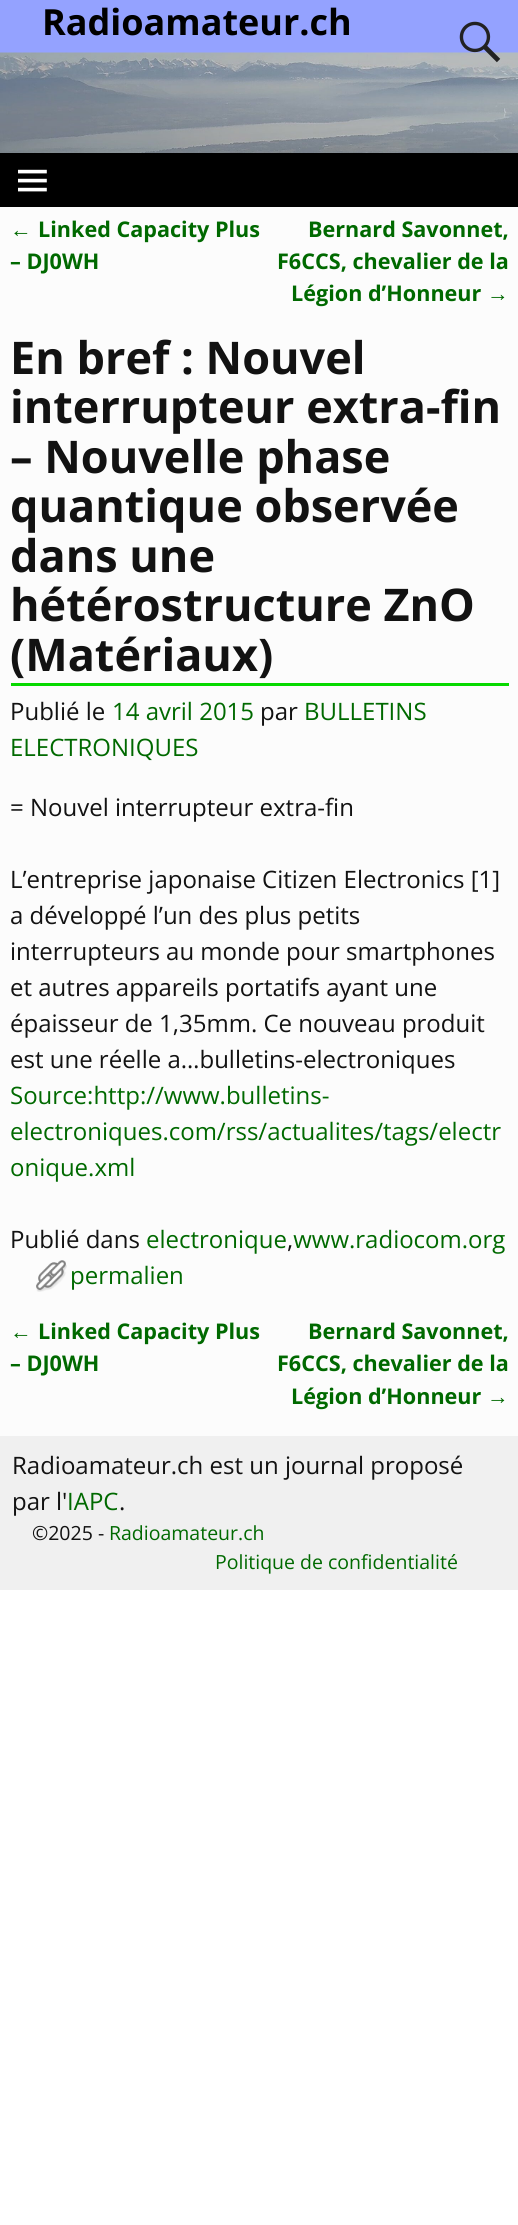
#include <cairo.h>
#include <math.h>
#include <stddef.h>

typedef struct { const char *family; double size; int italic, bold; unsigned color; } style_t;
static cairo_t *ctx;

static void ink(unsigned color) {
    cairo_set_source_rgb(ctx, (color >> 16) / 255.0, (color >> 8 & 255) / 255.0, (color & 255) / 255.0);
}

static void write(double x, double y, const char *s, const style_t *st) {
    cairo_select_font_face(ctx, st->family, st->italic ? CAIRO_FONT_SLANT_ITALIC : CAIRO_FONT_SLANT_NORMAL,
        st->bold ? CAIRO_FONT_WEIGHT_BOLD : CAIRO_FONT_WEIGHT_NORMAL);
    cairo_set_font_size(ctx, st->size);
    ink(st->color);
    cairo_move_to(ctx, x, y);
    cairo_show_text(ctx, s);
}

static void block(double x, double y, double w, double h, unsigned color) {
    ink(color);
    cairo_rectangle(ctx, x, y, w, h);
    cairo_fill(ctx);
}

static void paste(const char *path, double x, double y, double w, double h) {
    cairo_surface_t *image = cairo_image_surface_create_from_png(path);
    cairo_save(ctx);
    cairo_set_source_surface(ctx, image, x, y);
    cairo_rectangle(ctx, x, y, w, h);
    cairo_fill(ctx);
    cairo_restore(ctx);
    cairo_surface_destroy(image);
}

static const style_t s1 = {"Open Sans", 36, 0, 1, 0x000000};
static const style_t s2 = {"Liberation Sans", 21.6, 0, 0, 0x006900};
static const style_t s3 = {"Open Sans", 21.6, 0, 1, 0x006900};
static const style_t s4 = {"Open Sans", 45, 0, 1, 0x121212};
static const style_t s5 = {"Open Sans", 24, 0, 0, 0x121212};
static const style_t s6 = {"Open Sans", 24, 0, 0, 0x006900};
static const style_t s7 = {"Open Sans", 19.5, 0, 0, 0x121212};
static const style_t s8 = {"Open Sans", 19.5, 0, 0, 0x006900};

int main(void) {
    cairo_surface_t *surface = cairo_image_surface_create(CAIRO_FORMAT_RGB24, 518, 2225);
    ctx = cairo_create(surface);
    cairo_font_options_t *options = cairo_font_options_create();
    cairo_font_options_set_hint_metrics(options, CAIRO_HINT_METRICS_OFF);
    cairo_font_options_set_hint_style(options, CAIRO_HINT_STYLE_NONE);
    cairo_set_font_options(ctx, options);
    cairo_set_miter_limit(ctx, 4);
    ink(0xffffff);
    cairo_paint(ctx);
    block(0, 207, 518, 1229, 0xfcfcfc);
    block(0, 0, 518, 53, 0x94a2ff);
    write(42, 35, "Radioamateur.ch", &s1);
    paste("pic2.png", 0, 52, 518, 101);
    paste("pic1.png", 459, 21, 42, 42);
    block(0, 153, 518, 54, 0x000000);
    paste("pic3.png", 18, 169, 29, 23);
    write(10, 237, "←", &s2);
    write(38, 237, "Linked Capacity Plus", &s3);
    write(10, 269, "– DJ0WH", &s3);
    write(308, 237, "Bernard Savonnet,", &s3);
    write(277, 269, "F6CCS, chevalier de la", &s3);
    write(291, 301, "Légion d’Honneur", &s3);
    write(487, 301, "→", &s2);
    block(11, 683, 498, 3, 0x07d900);
    write(10, 374, "En bref : Nouvel", &s4);
    write(10, 423, "interrupteur extra-fin", &s4);
    write(10, 473, "– Nouvelle phase", &s4);
    write(10, 522, "quantique observée", &s4);
    write(10, 572, "dans une", &s4);
    write(10, 621, "hétérostructure ZnO", &s4);
    write(10, 671, "(Matériaux)", &s4);
    write(10, 720, "Publié le", &s5);
    write(112, 720, "14 avril 2015", &s6);
    write(260, 720, "par", &s5);
    write(304, 720, "BULLETINS", &s6);
    write(10, 756, "ELECTRONIQUES", &s6);
    write(10, 816, "= Nouvel interrupteur extra-fin", &s5);
    write(10, 888, "L’entreprise japonaise Citizen Electronics [1]", &s5);
    write(10, 924, "a développé l’un des plus petits", &s5);
    write(10, 960, "interrupteurs au monde pour smartphones", &s5);
    write(10, 996, "et autres appareils portatifs ayant une", &s5);
    write(10, 1032, "épaisseur de 1,35mm. Ce nouveau produit", &s5);
    write(10, 1068, "est une réelle a…bulletins-electroniques", &s5);
    write(10, 1104, "Source:http://www.bulletins-", &s6);
    write(10, 1140, "electroniques.com/rss/actualites/tags/electr", &s6);
    write(10, 1176, "onique.xml", &s6);
    write(10, 1248, "Publié dans", &s5);
    write(146, 1248, "electronique www.radiocom.org", &s6);
    write(287, 1248, ",", &s5);
    paste("pic4.png", 36, 1260, 31, 32);
    write(70, 1284, "permalien", &s6);
    write(10, 1339, "←", &s2);
    write(38, 1339, "Linked Capacity Plus", &s3);
    write(10, 1371, "– DJ0WH", &s3);
    write(308, 1339, "Bernard Savonnet,", &s3);
    write(277, 1371, "F6CCS, chevalier de la", &s3);
    write(291, 1404, "Légion d’Honneur", &s3);
    write(487, 1404, "→", &s2);
    block(0, 1436, 518, 154, 0xf0f0f0);
    write(12, 1474, "Radioamateur.ch est un journal proposé", &s5);
    write(12, 1510, "par l'", &s5);
    write(67, 1510, "IAPC", &s6);
    write(119, 1510, ".", &s5);
    write(32, 1540, "©2025 -", &s7);
    write(109, 1540, "Radioamateur.ch", &s8);
    write(215, 1569, "Politique de confidentialité", &s8);
    cairo_surface_write_to_png(surface, "screenshot.png");
    cairo_font_options_destroy(options);
    cairo_destroy(ctx);
    cairo_surface_destroy(surface);
    return 0;
}
